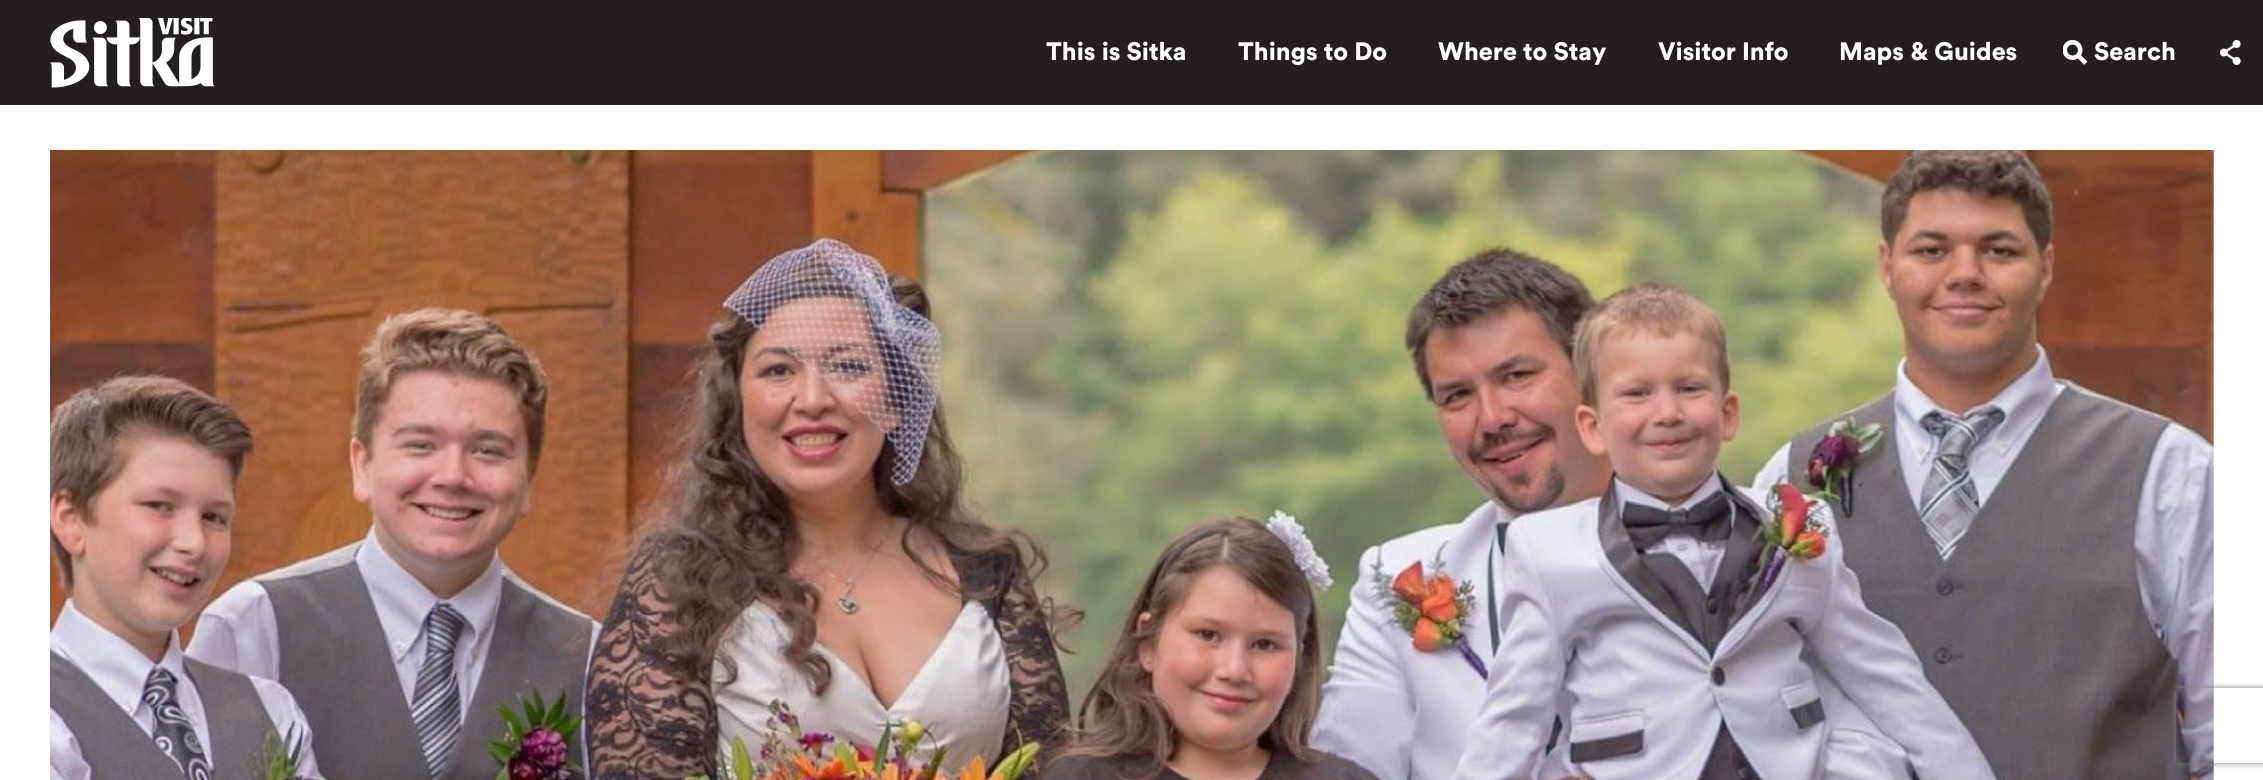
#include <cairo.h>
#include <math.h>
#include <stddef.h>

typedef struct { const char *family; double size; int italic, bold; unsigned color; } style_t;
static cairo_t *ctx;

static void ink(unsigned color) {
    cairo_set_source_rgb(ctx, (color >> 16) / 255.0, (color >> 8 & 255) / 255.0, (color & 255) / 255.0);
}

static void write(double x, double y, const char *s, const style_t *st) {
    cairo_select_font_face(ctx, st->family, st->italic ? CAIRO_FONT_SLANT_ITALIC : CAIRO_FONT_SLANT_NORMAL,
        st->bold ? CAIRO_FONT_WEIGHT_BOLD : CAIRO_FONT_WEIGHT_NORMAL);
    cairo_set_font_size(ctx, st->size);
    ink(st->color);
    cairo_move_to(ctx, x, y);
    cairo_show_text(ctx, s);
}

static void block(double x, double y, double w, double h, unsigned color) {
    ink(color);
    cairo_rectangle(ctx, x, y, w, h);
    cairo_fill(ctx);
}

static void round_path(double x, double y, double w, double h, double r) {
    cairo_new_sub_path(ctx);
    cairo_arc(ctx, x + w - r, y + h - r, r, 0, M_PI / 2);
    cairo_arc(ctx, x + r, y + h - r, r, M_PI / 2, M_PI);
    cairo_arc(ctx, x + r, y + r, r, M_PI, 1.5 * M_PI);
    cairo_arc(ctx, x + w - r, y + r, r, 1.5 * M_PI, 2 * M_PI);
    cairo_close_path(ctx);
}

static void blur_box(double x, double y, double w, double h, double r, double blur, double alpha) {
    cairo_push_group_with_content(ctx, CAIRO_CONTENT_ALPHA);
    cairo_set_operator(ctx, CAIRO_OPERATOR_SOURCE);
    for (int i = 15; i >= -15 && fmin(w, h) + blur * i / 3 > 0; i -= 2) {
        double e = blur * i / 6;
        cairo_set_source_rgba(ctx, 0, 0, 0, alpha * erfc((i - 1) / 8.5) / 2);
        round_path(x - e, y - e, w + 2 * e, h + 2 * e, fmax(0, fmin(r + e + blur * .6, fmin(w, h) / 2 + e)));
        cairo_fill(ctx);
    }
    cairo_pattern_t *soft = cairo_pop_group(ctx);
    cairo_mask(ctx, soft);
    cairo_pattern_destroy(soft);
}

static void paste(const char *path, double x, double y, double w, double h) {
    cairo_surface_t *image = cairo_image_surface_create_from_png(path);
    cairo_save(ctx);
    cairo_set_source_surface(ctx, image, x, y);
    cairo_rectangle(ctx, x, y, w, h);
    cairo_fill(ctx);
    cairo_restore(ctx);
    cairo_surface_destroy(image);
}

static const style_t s1 = {"Circular Black", 25, 0, 0, 0xffffff};

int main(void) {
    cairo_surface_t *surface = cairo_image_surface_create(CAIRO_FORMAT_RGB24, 2263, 780);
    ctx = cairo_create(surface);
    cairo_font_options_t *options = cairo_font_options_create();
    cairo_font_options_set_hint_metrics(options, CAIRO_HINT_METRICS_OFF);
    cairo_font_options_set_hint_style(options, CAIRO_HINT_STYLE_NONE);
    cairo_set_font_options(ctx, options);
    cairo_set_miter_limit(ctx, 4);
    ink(0xffffff);
    cairo_paint(ctx);
    block(0, 0, 2263, 105, 0x231f20);
    paste("pic1.png", 50, 18, 165, 70);
    write(1046, 60, "This is Sitka", &s1);
    write(1238, 60, "Things to Do", &s1);
    write(1438, 60, "Where to Stay", &s1);
    write(1658, 60, "Visitor Info", &s1);
    write(1839, 60, "Maps & Guides", &s1);
    paste("pic2.png", 2063, 40, 25, 25);
    write(2094, 60, "Search", &s1);
    paste("pic3.png", 2220, 40, 21, 25);
    paste("pic4.png", 50, 150, 2164, 630);
    cairo_save(ctx);
    cairo_set_fill_rule(ctx, CAIRO_FILL_RULE_EVEN_ODD);
    cairo_new_path(ctx);
    cairo_move_to(ctx, 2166, 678);
    cairo_line_to(ctx, 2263, 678);
    cairo_line_to(ctx, 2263, 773);
    cairo_line_to(ctx, 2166, 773);
    cairo_close_path(ctx);
    cairo_move_to(ctx, 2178.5, 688);
    cairo_line_to(ctx, 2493.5, 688);
    cairo_curve_to(ctx, 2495, 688, 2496, 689, 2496, 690.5);
    cairo_line_to(ctx, 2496, 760.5);
    cairo_curve_to(ctx, 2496, 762, 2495, 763, 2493.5, 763);
    cairo_line_to(ctx, 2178.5, 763);
    cairo_curve_to(ctx, 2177, 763, 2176, 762, 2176, 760.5);
    cairo_line_to(ctx, 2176, 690.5);
    cairo_curve_to(ctx, 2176, 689, 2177, 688, 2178.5, 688);
    cairo_close_path(ctx);
    cairo_clip(ctx);
    ink(0x808080);
    blur_box(2176, 688, 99, 75, 2.5, 3, 1);
    cairo_restore(ctx);
    cairo_surface_write_to_png(surface, "screenshot.png");
    cairo_font_options_destroy(options);
    cairo_destroy(ctx);
    cairo_surface_destroy(surface);
    return 0;
}
